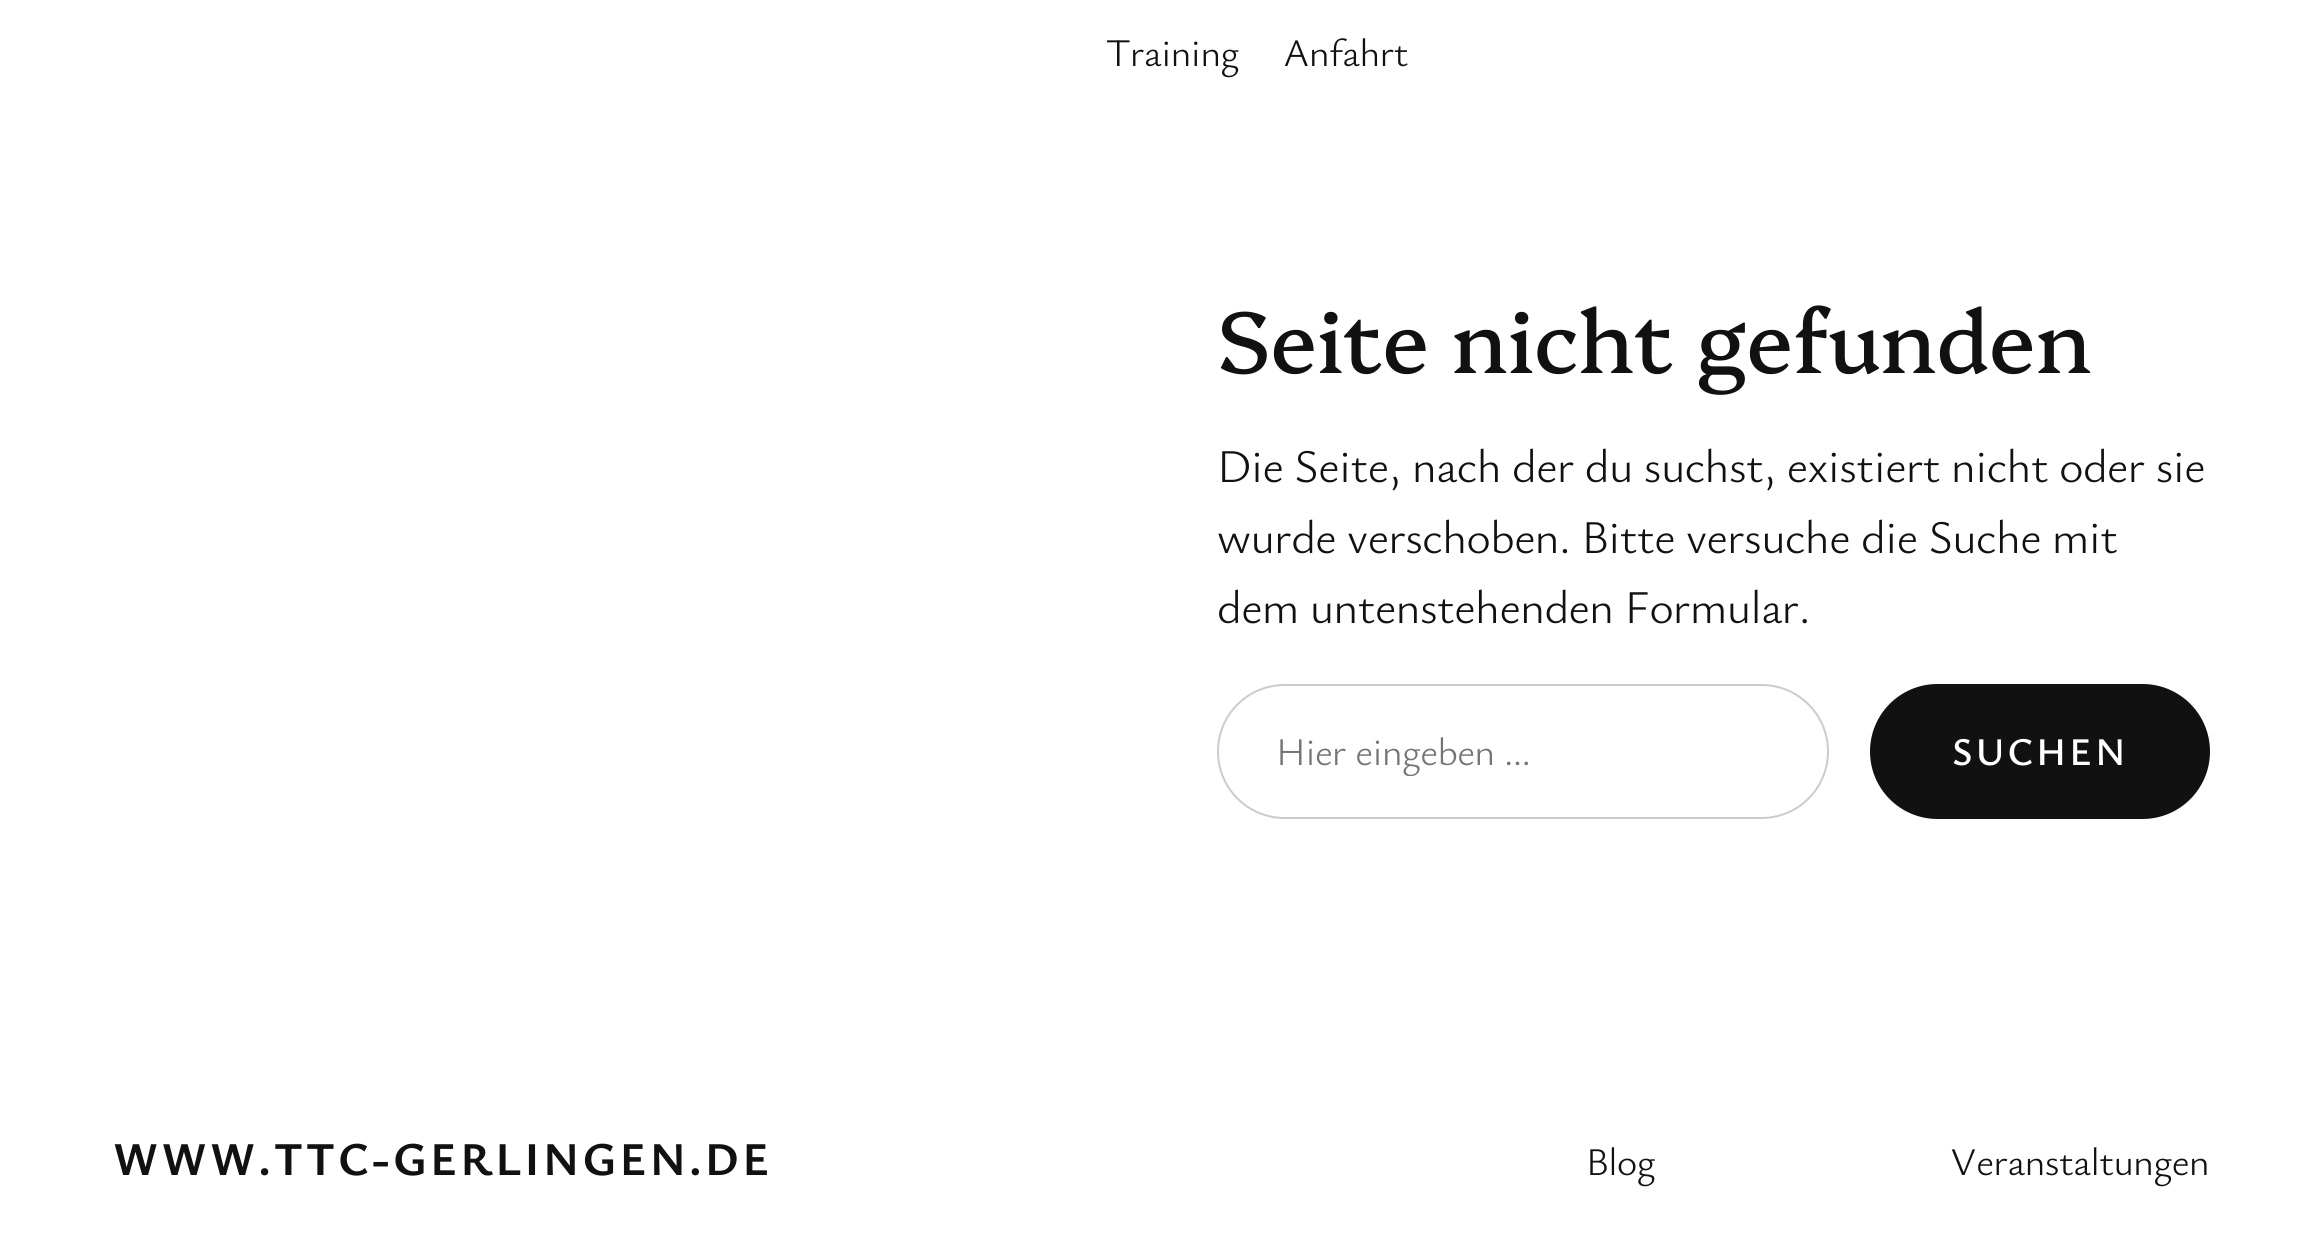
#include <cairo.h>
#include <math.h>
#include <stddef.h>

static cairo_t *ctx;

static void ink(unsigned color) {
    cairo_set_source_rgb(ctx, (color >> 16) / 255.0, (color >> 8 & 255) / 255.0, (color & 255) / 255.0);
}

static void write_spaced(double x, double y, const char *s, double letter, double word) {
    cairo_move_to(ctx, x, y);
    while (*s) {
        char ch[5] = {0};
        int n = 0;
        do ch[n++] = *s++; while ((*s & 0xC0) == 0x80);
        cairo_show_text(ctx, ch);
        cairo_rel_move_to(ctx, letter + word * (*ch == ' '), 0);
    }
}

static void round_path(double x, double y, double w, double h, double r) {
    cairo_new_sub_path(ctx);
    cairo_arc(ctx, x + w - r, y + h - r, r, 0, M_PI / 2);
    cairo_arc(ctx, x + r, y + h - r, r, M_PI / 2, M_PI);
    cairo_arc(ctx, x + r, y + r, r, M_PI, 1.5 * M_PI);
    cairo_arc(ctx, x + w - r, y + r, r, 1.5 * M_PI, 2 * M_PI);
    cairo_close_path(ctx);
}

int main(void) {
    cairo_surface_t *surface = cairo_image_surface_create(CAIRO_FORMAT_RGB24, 2320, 1252);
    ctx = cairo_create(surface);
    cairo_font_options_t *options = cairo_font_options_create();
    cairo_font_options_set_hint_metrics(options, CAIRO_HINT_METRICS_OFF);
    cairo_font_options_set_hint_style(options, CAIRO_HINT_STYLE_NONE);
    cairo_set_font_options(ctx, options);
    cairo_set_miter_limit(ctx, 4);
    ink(0xffffff);
    cairo_paint(ctx);
    cairo_select_font_face(ctx, "Ysabeau Office Light", CAIRO_FONT_SLANT_NORMAL, CAIRO_FONT_WEIGHT_NORMAL);
    cairo_set_font_size(ctx, 39);
    ink(0x111111);
    write_spaced(1106, 66, "Training", -0.5, 0);
    write_spaced(1283, 66, "Anfahrt", -0.5, 0);
    cairo_select_font_face(ctx, "Platypi", CAIRO_FONT_SLANT_NORMAL, CAIRO_FONT_WEIGHT_NORMAL);
    cairo_set_font_size(ctx, 87);
    write_spaced(1217, 373, "Seite nicht gefunden", -0.25, 0);
    cairo_select_font_face(ctx, "Ysabeau Office Light", CAIRO_FONT_SLANT_NORMAL, CAIRO_FONT_WEIGHT_NORMAL);
    cairo_set_font_size(ctx, 46.75);
    write_spaced(1217, 482, "Die Seite, nach der du suchst, existiert nicht oder sie", -0.5, 0);
    write_spaced(1217, 553, "wurde verschoben. Bitte versuche die Suche mit", -0.5, 0);
    write_spaced(1217, 623, "dem untenstehenden Formular.", -0.5, 0);
    round_path(1218, 685, 610, 133, 66.5);
    ink(0xcccccc);
    cairo_stroke(ctx);
    cairo_save(ctx);
    cairo_rectangle(ctx, 1276, 725, 459, 51);
    cairo_clip(ctx);
    cairo_set_font_size(ctx, 39);
    ink(0x757575);
    write_spaced(1276, 765, "Hier eingeben …", -0.5, 0);
    cairo_restore(ctx);
    ink(0x111111);
    round_path(1870, 684, 340, 135, 67.5);
    cairo_fill(ctx);
    cairo_select_font_face(ctx, "Ysabeau Office SemiBold", CAIRO_FONT_SLANT_NORMAL, CAIRO_FONT_WEIGHT_NORMAL);
    cairo_set_font_size(ctx, 39);
    ink(0xffffff);
    write_spaced(1952, 765, "SUCHEN", 3.25, 0);
    cairo_select_font_face(ctx, "Ysabeau Office", CAIRO_FONT_SLANT_NORMAL, CAIRO_FONT_WEIGHT_BOLD);
    cairo_set_font_size(ctx, 46.75);
    ink(0x111111);
    write_spaced(113, 1175, "WWW.TTC-GERLINGEN.DE", 3.25, 0);
    cairo_select_font_face(ctx, "Ysabeau Office Light", CAIRO_FONT_SLANT_NORMAL, CAIRO_FONT_WEIGHT_NORMAL);
    cairo_set_font_size(ctx, 39);
    write_spaced(1586, 1175, "Blog", -0.5, 0);
    write_spaced(1950, 1175, "Veranstaltungen", -0.5, 0);
    cairo_surface_write_to_png(surface, "screenshot.png");
    cairo_font_options_destroy(options);
    cairo_destroy(ctx);
    cairo_surface_destroy(surface);
    return 0;
}
